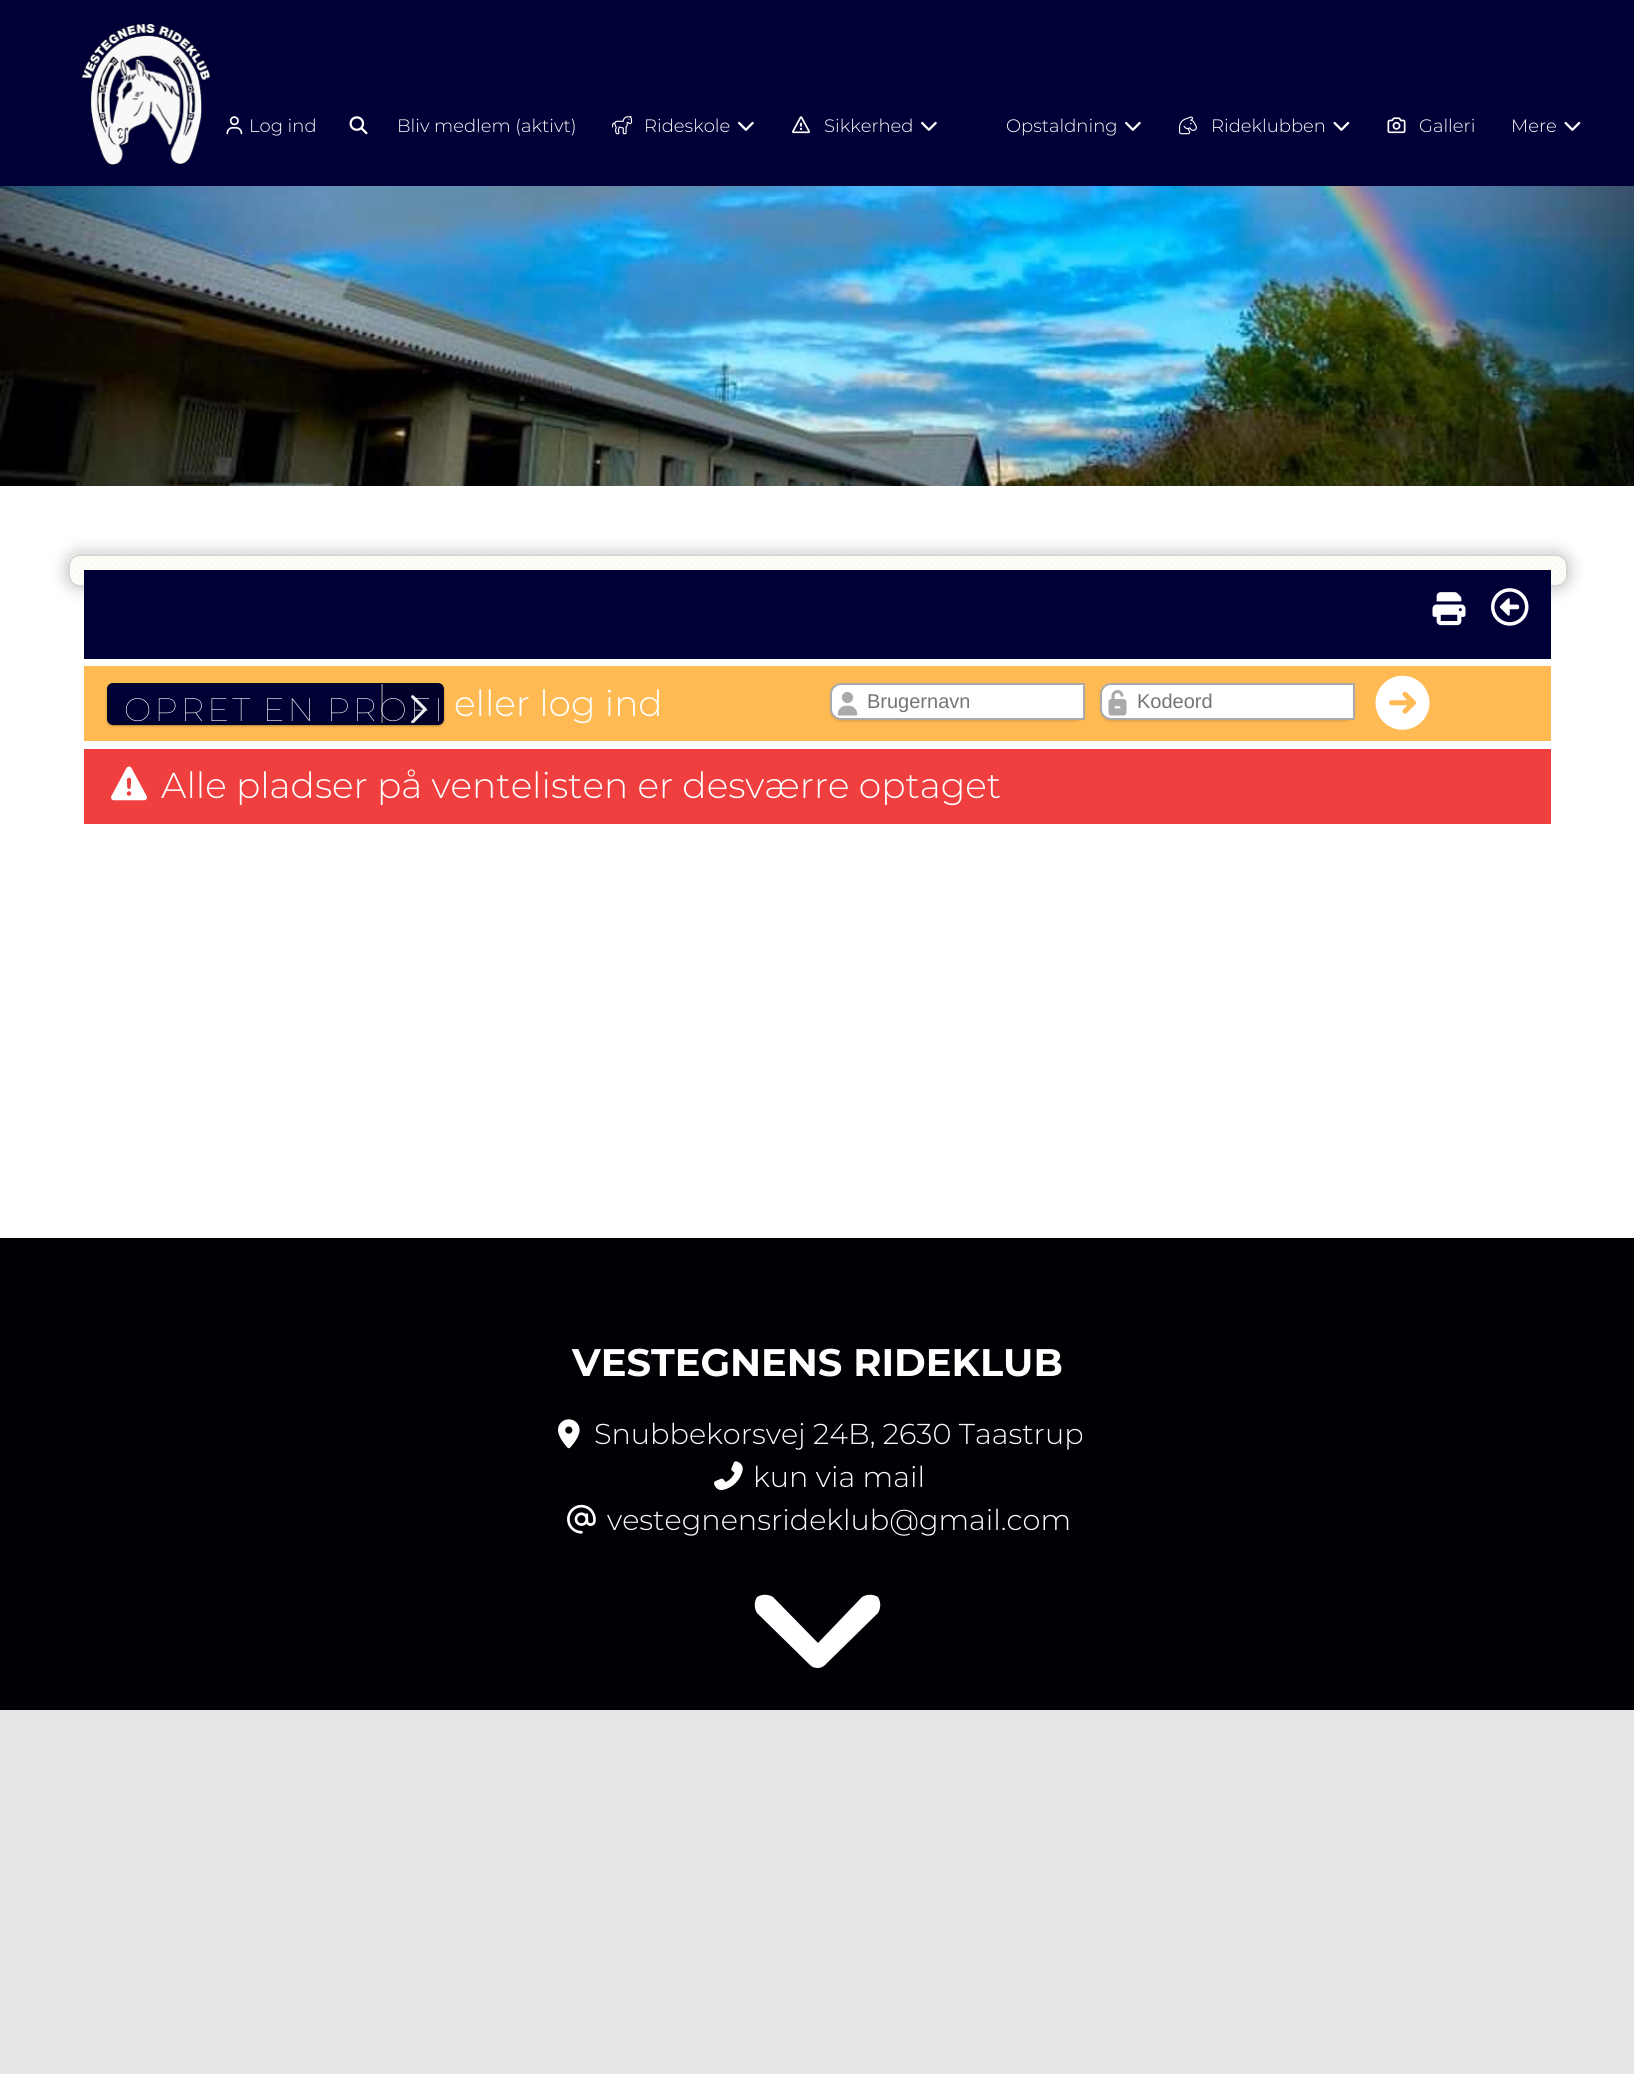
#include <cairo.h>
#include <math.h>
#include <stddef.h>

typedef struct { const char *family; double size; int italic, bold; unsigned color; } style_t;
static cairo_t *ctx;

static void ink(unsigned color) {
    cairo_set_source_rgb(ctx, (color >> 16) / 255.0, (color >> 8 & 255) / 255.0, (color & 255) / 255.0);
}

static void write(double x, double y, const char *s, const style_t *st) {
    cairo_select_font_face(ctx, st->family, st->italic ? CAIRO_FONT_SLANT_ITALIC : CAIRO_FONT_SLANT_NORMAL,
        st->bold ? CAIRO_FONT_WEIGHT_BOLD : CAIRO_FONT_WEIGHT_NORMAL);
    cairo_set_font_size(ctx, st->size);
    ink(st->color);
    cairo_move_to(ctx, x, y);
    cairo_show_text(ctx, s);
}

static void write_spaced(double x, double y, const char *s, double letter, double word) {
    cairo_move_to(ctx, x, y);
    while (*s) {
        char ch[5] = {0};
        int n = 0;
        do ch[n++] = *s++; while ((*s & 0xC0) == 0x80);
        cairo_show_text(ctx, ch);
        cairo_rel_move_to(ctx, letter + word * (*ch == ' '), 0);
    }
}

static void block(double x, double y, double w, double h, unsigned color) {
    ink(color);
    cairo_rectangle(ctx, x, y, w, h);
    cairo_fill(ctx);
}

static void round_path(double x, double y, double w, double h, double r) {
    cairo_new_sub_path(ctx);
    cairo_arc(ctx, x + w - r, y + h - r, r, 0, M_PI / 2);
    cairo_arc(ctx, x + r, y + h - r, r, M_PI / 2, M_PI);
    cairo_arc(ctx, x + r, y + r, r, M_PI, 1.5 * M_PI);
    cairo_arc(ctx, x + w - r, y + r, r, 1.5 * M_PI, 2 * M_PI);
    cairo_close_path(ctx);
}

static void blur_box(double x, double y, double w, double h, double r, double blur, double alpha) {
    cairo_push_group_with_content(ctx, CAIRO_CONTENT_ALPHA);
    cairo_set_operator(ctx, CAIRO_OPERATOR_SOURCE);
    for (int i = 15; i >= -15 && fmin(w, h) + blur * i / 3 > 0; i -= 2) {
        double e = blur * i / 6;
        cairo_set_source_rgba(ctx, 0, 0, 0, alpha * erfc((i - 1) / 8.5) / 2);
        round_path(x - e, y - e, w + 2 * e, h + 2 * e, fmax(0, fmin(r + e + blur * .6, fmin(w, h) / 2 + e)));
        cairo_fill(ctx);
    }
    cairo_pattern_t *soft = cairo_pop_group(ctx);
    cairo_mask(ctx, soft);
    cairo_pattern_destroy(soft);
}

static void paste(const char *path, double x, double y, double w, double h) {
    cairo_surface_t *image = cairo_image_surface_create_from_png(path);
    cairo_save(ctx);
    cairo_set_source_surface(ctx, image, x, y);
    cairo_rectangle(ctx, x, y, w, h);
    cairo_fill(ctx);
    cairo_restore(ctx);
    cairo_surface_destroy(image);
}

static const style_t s1 = {"Montserrat Light", 18, 0, 0, 0xffffff};
static const style_t s2 = {"Montserrat Light", 36, 0, 0, 0xffffff};
static const style_t s3 = {"Liberation Sans", 20, 0, 0, 0x757575};
static const style_t s4 = {"Montserrat", 38.4, 0, 1, 0xffffff};
static const style_t s5 = {"Montserrat Light", 28.75, 0, 0, 0xffffff};

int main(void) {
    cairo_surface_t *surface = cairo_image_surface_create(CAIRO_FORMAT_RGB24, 1634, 2074);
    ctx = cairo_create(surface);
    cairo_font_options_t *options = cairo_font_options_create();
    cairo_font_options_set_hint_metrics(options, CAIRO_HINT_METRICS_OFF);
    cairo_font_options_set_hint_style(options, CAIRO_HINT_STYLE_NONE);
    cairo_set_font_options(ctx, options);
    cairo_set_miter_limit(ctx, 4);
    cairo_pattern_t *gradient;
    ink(0xe6e6e6);
    cairo_paint(ctx);
    block(0, 0, 1634, 186, 0x000037);
    paste("pic1.png", 0, 186, 1634, 300);
    paste("pic2.png", 81, 23, 130, 142);
    paste("pic3.png", 226, 116, 17, 19);
    write(249, 132, "Log ind", &s1);
    paste("pic4.png", 349, 116, 19, 19);
    write(397, 132, "Bliv medlem (aktivt)", &s1);
    paste("pic5.png", 612, 116, 21, 19);
    write(644, 132, "Rideskole", &s1);
    paste("pic6.png", 738, 121, 16, 10);
    paste("pic7.png", 792, 116, 18, 18);
    write(824, 132, "Sikkerhed", &s1);
    paste("pic6.png", 921, 121, 16, 10);
    write(1006, 132, "Opstaldning", &s1);
    paste("pic6.png", 1125, 121, 16, 10);
    paste("pic8.png", 1179, 116, 18, 19);
    write(1211, 132, "Rideklubben", &s1);
    paste("pic9.png", 1333, 121, 17, 10);
    paste("pic10.png", 1387, 117, 19, 17);
    write(1419, 132, "Galleri", &s1);
    write(1511, 132, "Mere", &s1);
    paste("pic9.png", 1564, 121, 17, 10);
    block(0, 486, 1634, 752, 0xffffff);
    ink(0x000000);
    blur_box(65, 551, 1506, 39, 15, 7.5, 0.2);
    paste("pic11.png", 68, 553, 1500, 34);
    round_path(69, 555, 1498, 31, 11);
    ink(0xd6d6d6);
    cairo_stroke(ctx);
    block(84, 570, 1467, 89, 0x000037);
    paste("pic12.png", 1432, 592, 34, 34);
    paste("pic13.png", 1491, 588, 38, 38);
    block(84, 666, 1467, 75, 0xffba53);
    cairo_save(ctx);
    cairo_set_fill_rule(ctx, CAIRO_FILL_RULE_EVEN_ODD);
    cairo_new_path(ctx);
    cairo_move_to(ctx, 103, 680);
    cairo_line_to(ctx, 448, 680);
    cairo_line_to(ctx, 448, 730);
    cairo_line_to(ctx, 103, 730);
    cairo_close_path(ctx);
    cairo_move_to(ctx, 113, 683);
    cairo_line_to(ctx, 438, 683);
    cairo_curve_to(ctx, 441.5, 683, 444, 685.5, 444, 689);
    cairo_line_to(ctx, 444, 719);
    cairo_curve_to(ctx, 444, 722.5, 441.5, 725, 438, 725);
    cairo_line_to(ctx, 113, 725);
    cairo_curve_to(ctx, 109.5, 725, 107, 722.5, 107, 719);
    cairo_line_to(ctx, 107, 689);
    cairo_curve_to(ctx, 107, 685.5, 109.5, 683, 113, 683);
    cairo_close_path(ctx);
    cairo_clip(ctx);
    ink(0x000000);
    blur_box(107, 684, 337, 42, 6, 1, 0.3);
    cairo_restore(ctx);
    ink(0x000037);
    round_path(107, 683, 337, 42, 6);
    cairo_fill(ctx);
    ink(0x000032);
    cairo_new_path(ctx);
    cairo_move_to(ctx, 112, 686);
    cairo_line_to(ctx, 438, 686);
    cairo_curve_to(ctx, 440, 686, 442, 688, 442, 690);
    cairo_line_to(ctx, 442, 720);
    cairo_line_to(ctx, 441, 722);
    cairo_curve_to(ctx, 442, 722, 443, 720, 443, 719);
    cairo_line_to(ctx, 443, 688);
    cairo_curve_to(ctx, 443, 686, 441, 684, 439, 684);
    cairo_line_to(ctx, 112, 684);
    cairo_curve_to(ctx, 110, 684, 108, 686, 108, 688);
    cairo_line_to(ctx, 108, 719);
    cairo_curve_to(ctx, 108, 720, 109, 721, 109, 722);
    cairo_line_to(ctx, 109, 695);
    cairo_curve_to(ctx, 109, 693, 108, 686, 112, 686);
    cairo_close_path(ctx);
    cairo_fill(ctx);
    round_path(108, 684, 335, 40, 5);
    cairo_set_source_rgba(ctx, 0, 0, 0, 0.2);
    cairo_stroke(ctx);
    cairo_new_path(ctx);
    cairo_move_to(ctx, 380, 684);
    cairo_line_to(ctx, 439, 684);
    cairo_curve_to(ctx, 441, 684, 443, 686, 443, 688);
    cairo_line_to(ctx, 443, 719);
    cairo_curve_to(ctx, 443, 721, 441, 723, 439, 723);
    cairo_line_to(ctx, 380, 723);
    cairo_close_path(ctx);
    cairo_fill(ctx);
    cairo_set_source_rgba(ctx, 1, 1, 1, 0.4);
    cairo_rectangle(ctx, 381, 684, 2, 39);
    cairo_fill(ctx);
    cairo_set_source_rgba(ctx, 0, 0, 0, 0.2);
    cairo_rectangle(ctx, 380, 684, 2, 39);
    cairo_fill(ctx);
    paste("pic14.png", 411, 695, 16, 28);
    gradient = cairo_pattern_create_linear(275, 684, 275, 723);
    cairo_pattern_add_color_stop_rgba(gradient, 0, 0, 0, 0, 0);
    cairo_pattern_add_color_stop_rgba(gradient, 1, 0, 0, 0, 0.1);
    cairo_set_source(ctx, gradient);
    cairo_pattern_destroy(gradient);
    round_path(108, 684, 335, 39, 4);
    cairo_fill(ctx);
    cairo_select_font_face(ctx, "Montserrat Thin", CAIRO_FONT_SLANT_NORMAL, CAIRO_FONT_WEIGHT_NORMAL);
    cairo_set_font_size(ctx, 32.5);
    ink(0xffffff);
    write_spaced(124, 721, "OPRET EN PROFI", 3.25, -2);
    write(454, 716, "eller log ind", &s2);
    ink(0x000000);
    blur_box(830, 684, 255, 38, 11, 1, 0.1);
    ink(0xffffff);
    cairo_new_path(ctx);
    cairo_move_to(ctx, 841, 684);
    cairo_line_to(ctx, 1084, 684);
    cairo_line_to(ctx, 1084, 719);
    cairo_line_to(ctx, 841, 719);
    cairo_curve_to(ctx, 835.5, 719, 831, 714.5, 831, 709);
    cairo_line_to(ctx, 831, 694);
    cairo_curve_to(ctx, 831, 688.5, 835.5, 684, 841, 684);
    cairo_close_path(ctx);
    cairo_fill_preserve(ctx);
    ink(0xaaaaaa);
    cairo_stroke(ctx);
    paste("pic15.png", 837, 691, 21, 25);
    write(867, 708, "Brugernavn", &s3);
    ink(0x000000);
    blur_box(1100, 684, 255, 38, 11, 1, 0.1);
    ink(0xffffff);
    cairo_new_path(ctx);
    cairo_move_to(ctx, 1111, 684);
    cairo_line_to(ctx, 1354, 684);
    cairo_line_to(ctx, 1354, 719);
    cairo_line_to(ctx, 1111, 719);
    cairo_curve_to(ctx, 1105.5, 719, 1101, 714.5, 1101, 709);
    cairo_line_to(ctx, 1101, 694);
    cairo_curve_to(ctx, 1101, 688.5, 1105.5, 684, 1111, 684);
    cairo_close_path(ctx);
    cairo_fill_preserve(ctx);
    ink(0xaaaaaa);
    cairo_stroke(ctx);
    paste("pic16.png", 1108, 690, 19, 26);
    write(1137, 708, "Kodeord", &s3);
    paste("pic17.png", 1375, 675, 55, 55);
    block(84, 749, 1467, 75, 0xef3f3f);
    paste("pic18.png", 111, 766, 36, 35);
    write(161, 798, "Alle pladser på ventelisten er desværre optaget", &s2);
    block(0, 1238, 1634, 472, 0x000005);
    write(572, 1376, "VESTEGNENS RIDEKLUB", &s4);
    paste("pic19.png", 558, 1419, 22, 30);
    write(594, 1444, "Snubbekorsvej 24B, 2630 Taastrup", &s5);
    paste("pic20.png", 714, 1461, 29, 30);
    write(753, 1487, "kun via mail", &s5);
    paste("pic21.png", 567, 1504, 29, 30);
    write(607, 1530, "vestegnensrideklub@gmail.com", &s5);
    cairo_new_path(ctx);
    cairo_move_to(ctx, 810, 1665);
    cairo_curve_to(ctx, 814, 1669, 821, 1669, 825, 1665);
    cairo_line_to(ctx, 878, 1613);
    cairo_curve_to(ctx, 881, 1608, 881, 1602, 878, 1597);
    cairo_curve_to(ctx, 873, 1594, 867, 1594, 862, 1597);
    cairo_line_to(ctx, 818, 1643);
    cairo_line_to(ctx, 773, 1597);
    cairo_curve_to(ctx, 768, 1594, 762, 1594, 757, 1597);
    cairo_curve_to(ctx, 754, 1602, 754, 1608, 757, 1613);
    cairo_close_path(ctx);
    cairo_fill(ctx);
    cairo_surface_write_to_png(surface, "screenshot.png");
    cairo_font_options_destroy(options);
    cairo_destroy(ctx);
    cairo_surface_destroy(surface);
    return 0;
}
